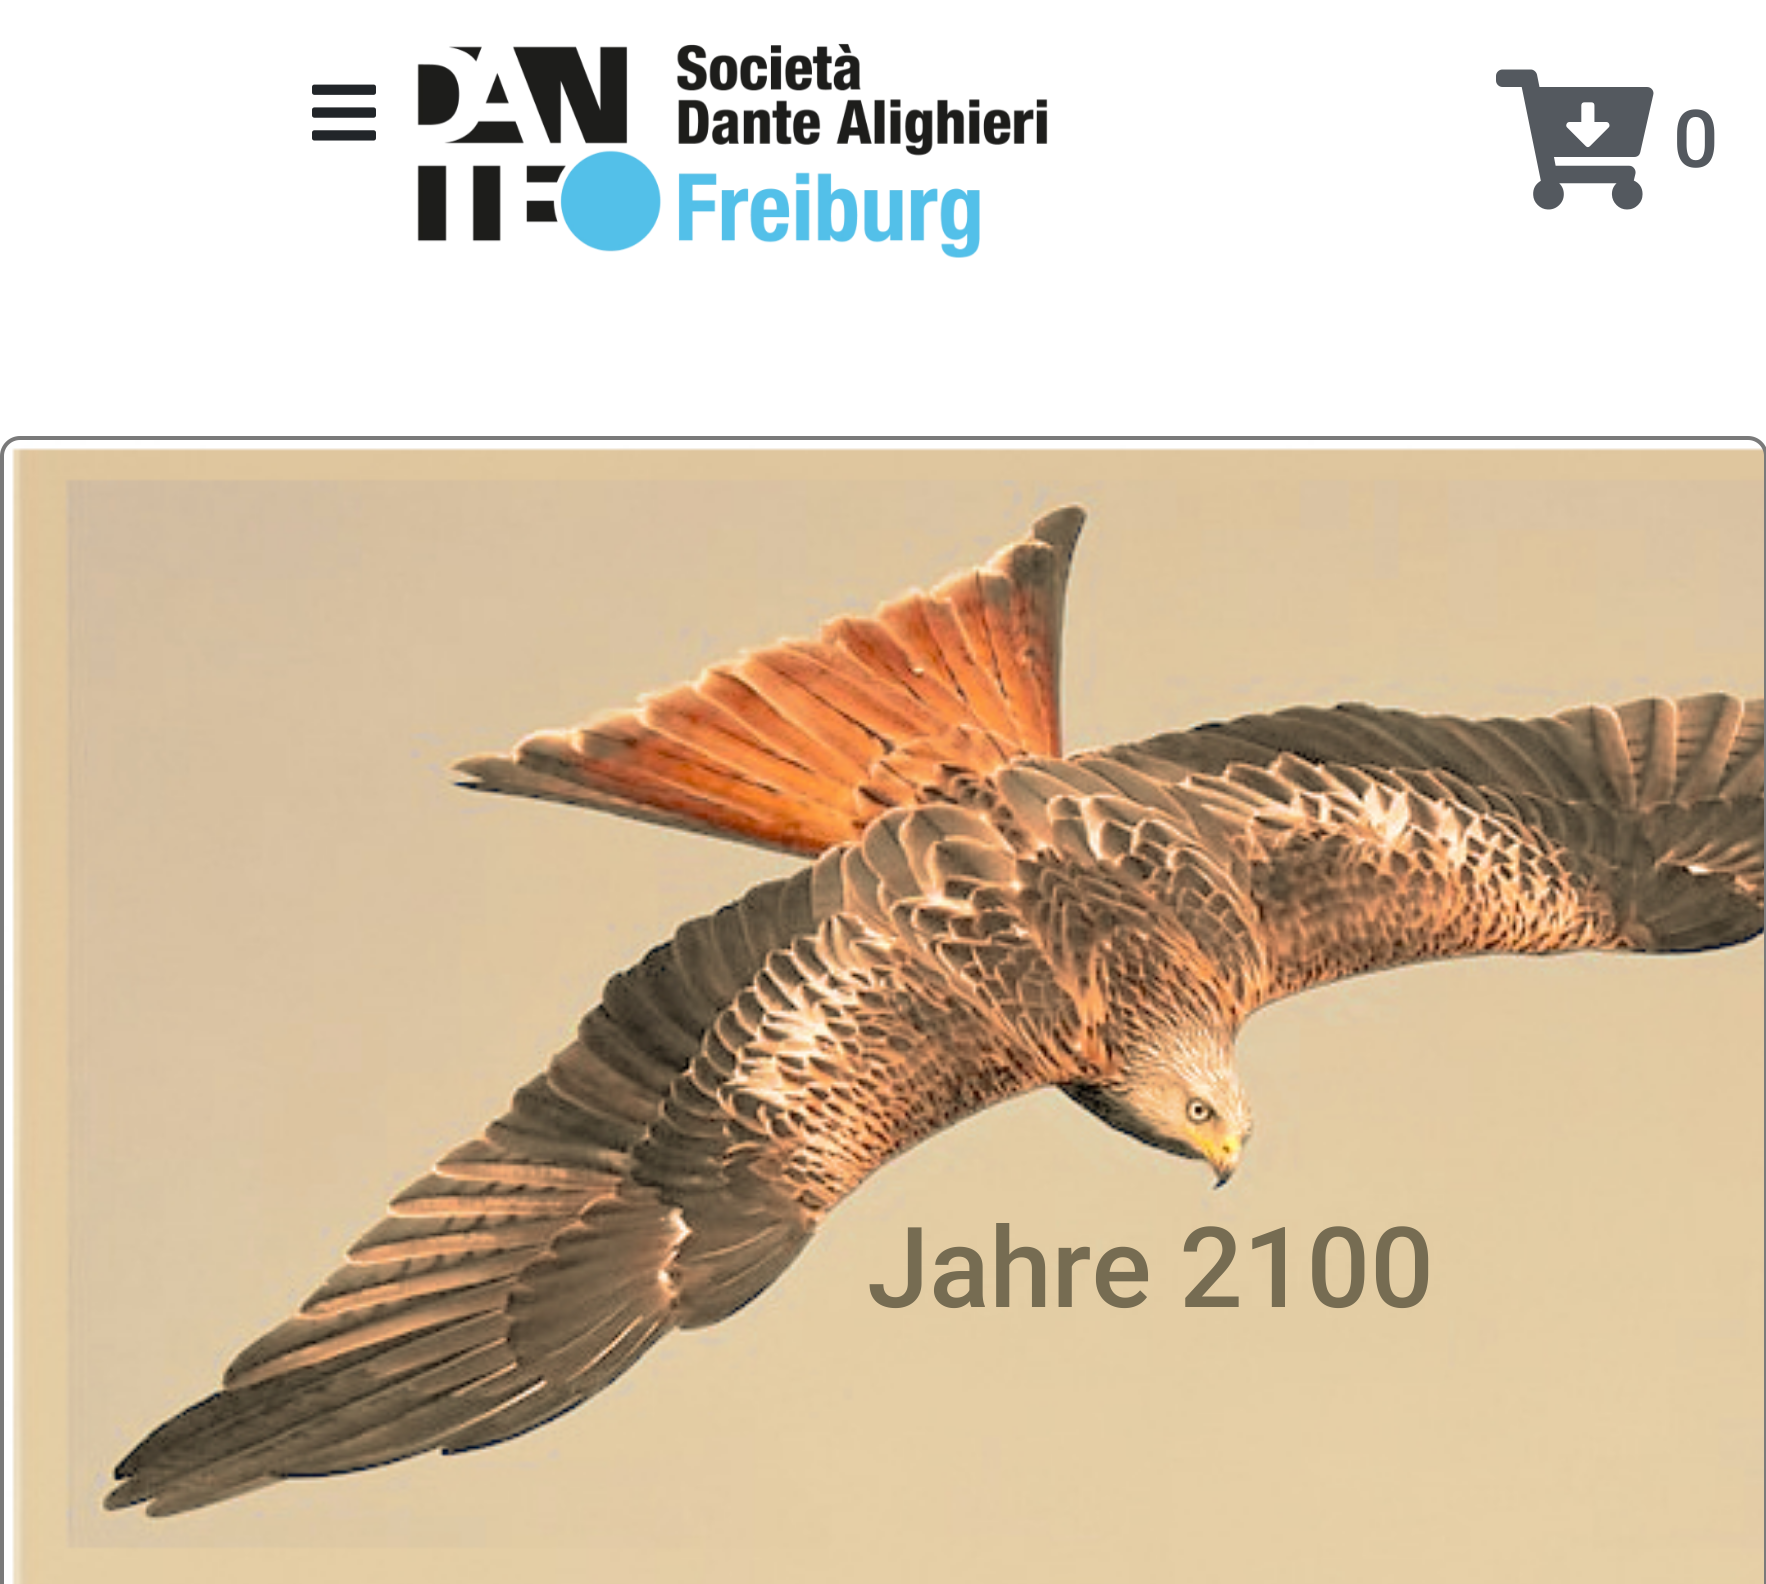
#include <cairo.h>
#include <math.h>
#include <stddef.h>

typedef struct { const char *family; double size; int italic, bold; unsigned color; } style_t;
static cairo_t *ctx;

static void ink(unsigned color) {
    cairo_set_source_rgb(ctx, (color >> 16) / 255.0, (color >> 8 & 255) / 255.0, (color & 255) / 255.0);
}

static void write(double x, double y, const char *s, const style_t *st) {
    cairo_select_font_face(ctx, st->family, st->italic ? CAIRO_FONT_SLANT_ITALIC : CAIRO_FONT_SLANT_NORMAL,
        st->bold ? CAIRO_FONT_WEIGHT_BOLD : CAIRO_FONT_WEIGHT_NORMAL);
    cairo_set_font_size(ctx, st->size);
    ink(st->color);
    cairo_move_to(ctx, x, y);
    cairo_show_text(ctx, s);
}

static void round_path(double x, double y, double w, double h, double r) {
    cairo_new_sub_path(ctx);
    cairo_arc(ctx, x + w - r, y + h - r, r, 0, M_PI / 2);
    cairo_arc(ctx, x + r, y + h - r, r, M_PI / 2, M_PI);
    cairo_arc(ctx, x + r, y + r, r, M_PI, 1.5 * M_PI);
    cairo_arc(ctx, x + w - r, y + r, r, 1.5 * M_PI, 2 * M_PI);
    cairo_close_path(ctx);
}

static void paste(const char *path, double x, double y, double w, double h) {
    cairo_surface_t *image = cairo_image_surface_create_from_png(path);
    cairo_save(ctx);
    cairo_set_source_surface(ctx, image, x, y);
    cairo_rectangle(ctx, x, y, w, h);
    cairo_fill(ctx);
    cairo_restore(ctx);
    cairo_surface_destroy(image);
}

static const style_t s1 = {"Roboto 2 Medium", 80, 0, 0, 0x54595f};
static const style_t s2 = {"Roboto Medium", 112, 0, 0, 0x766c52};

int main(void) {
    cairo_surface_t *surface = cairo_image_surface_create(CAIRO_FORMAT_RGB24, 1766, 1584);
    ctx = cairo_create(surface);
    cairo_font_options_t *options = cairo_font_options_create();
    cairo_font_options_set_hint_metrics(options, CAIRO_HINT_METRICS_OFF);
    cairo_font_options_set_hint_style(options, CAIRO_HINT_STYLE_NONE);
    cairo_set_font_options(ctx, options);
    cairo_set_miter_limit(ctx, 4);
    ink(0xffffff);
    cairo_paint(ctx);
    paste("pic1.png", 312, 84, 64, 57);
    paste("pic2.png", 417, 43, 631, 215);
    paste("pic3.png", 1496, 69, 158, 141);
    write(1673, 167, "0", &s1);
    paste("pic4.png", 4, 440, 1762, 1144);
    round_path(2, 438, 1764, 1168, 18);
    ink(0x7a7a7a);
    cairo_set_line_width(ctx, 4);
    cairo_stroke(ctx);
    write(867, 1307, "Jahre 2100", &s2);
    cairo_surface_write_to_png(surface, "screenshot.png");
    cairo_font_options_destroy(options);
    cairo_destroy(ctx);
    cairo_surface_destroy(surface);
    return 0;
}
